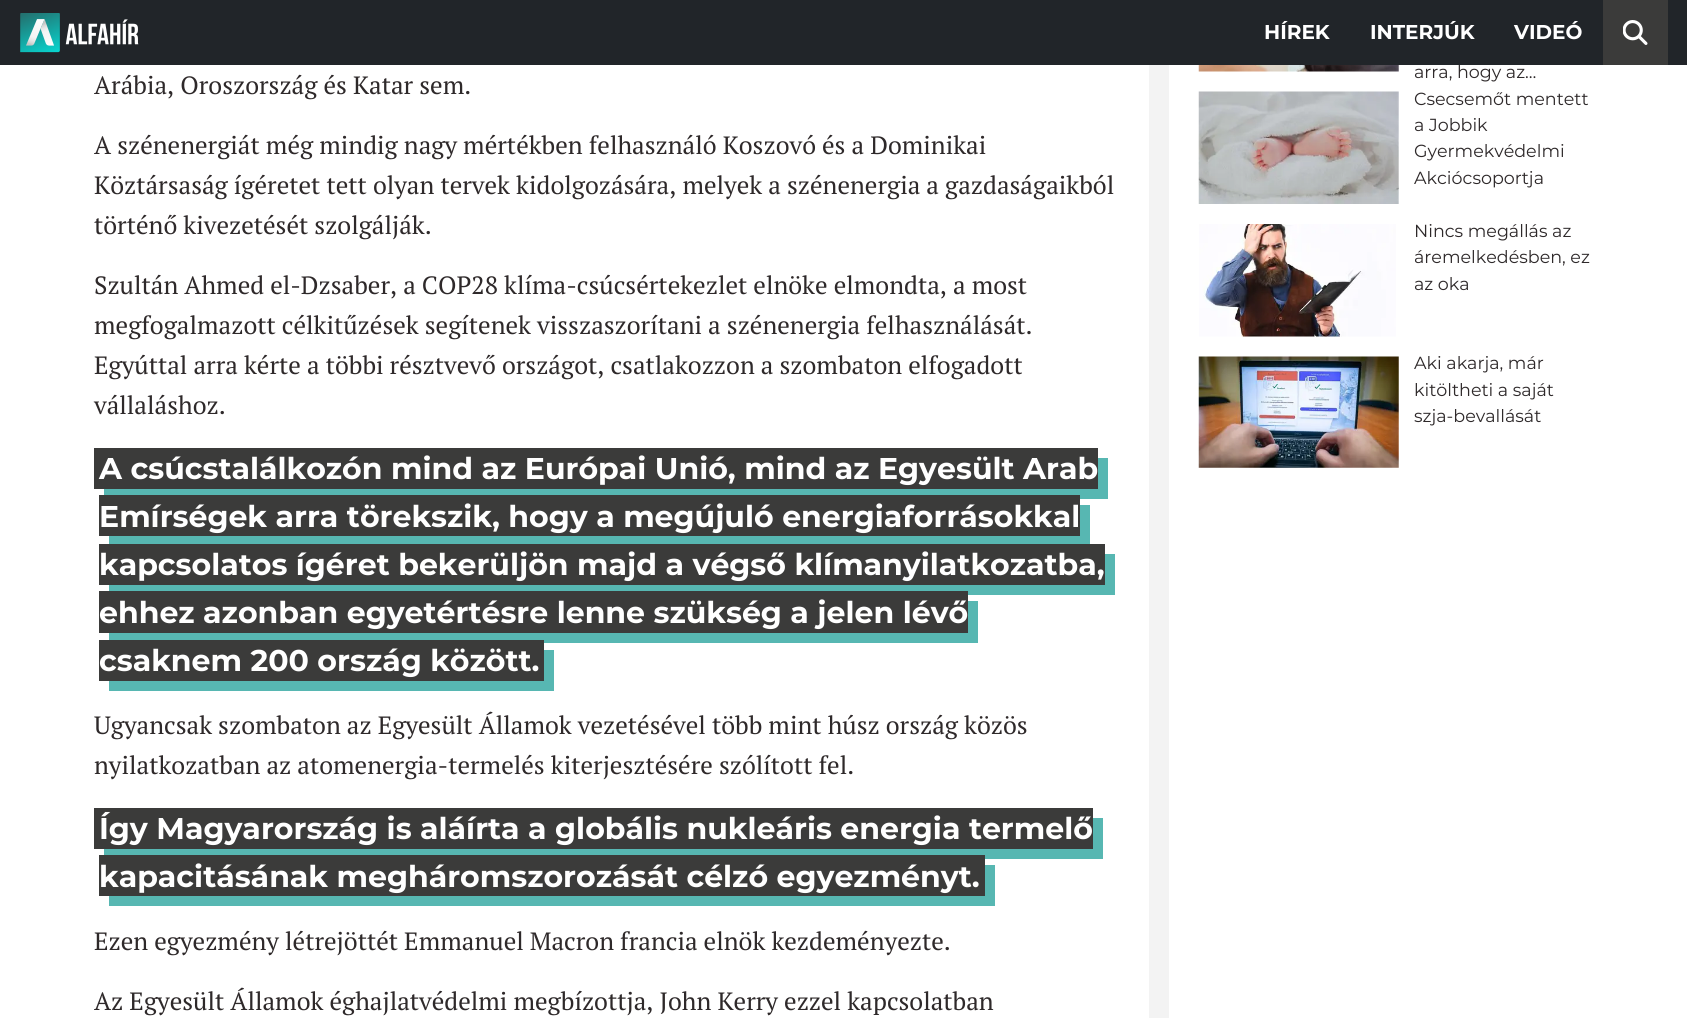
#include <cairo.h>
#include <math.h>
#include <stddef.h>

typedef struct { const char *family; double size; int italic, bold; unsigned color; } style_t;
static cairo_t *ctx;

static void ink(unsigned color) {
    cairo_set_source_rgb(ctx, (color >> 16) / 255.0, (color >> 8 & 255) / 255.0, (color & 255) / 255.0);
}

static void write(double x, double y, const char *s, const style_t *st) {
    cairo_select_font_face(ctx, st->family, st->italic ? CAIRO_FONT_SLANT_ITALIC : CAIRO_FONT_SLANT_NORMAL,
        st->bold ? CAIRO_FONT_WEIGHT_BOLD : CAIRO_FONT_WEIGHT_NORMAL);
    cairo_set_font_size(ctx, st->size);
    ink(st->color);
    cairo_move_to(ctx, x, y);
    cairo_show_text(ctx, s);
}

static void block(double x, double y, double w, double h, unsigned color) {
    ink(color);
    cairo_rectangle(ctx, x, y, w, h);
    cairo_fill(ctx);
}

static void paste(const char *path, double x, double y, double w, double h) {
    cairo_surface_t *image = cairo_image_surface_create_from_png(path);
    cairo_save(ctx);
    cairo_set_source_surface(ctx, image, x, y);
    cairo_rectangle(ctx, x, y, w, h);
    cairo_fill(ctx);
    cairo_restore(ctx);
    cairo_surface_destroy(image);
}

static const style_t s1 = {"Montserrat", 20, 0, 1, 0xffffff};
static const style_t s2 = {"PT Serif", 25, 0, 0, 0x2e292a};
static const style_t s3 = {"Montserrat", 30, 0, 1, 0xffffff};
static const style_t s4 = {"Montserrat", 17.5, 0, 0, 0x2e292a};

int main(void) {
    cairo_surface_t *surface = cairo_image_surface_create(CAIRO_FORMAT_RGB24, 1687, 1018);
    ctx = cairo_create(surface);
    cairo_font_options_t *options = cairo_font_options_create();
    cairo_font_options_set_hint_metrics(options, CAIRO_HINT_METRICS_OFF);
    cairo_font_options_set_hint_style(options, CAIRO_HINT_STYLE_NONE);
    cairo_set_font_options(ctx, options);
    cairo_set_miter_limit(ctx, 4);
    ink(0xffffff);
    cairo_paint(ctx);
    block(0, 0, 1687, 65, 0x212529);
    paste("pic1.png", 20, 13, 119, 40);
    write(1264, 39, "HÍREK", &s1);
    write(1370, 39, "INTERJÚK", &s1);
    write(1514, 39, "VIDEÓ", &s1);
    block(1603, 0, 65, 65, 0x3b3b3a);
    paste("pic2.png", 1623, 20, 25, 25);
    write(94, 94, "Arábia, Oroszország és Katar sem.", &s2);
    write(94, 154, "A szénenergiát még mindig nagy mértékben felhasználó Koszovó és a Dominikai", &s2);
    write(94, 194, "Köztársaság ígéretet tett olyan tervek kidolgozására, melyek a szénenergia a gazdaságaikból", &s2);
    write(94, 234, "történő kivezetését szolgálják.", &s2);
    write(94, 294, "Szultán Ahmed el-Dzsaber, a COP28 klíma-csúcsértekezlet elnöke elmondta, a most", &s2);
    write(94, 334, "megfogalmazott célkitűzések segítenek visszaszorítani a szénenergia felhasználását.", &s2);
    write(94, 374, "Egyúttal arra kérte a többi résztvevő országot, csatlakozzon a szombaton elfogadott", &s2);
    write(94, 414, "vállaláshoz.", &s2);
    ink(0x57b7b2);
    cairo_new_path(ctx);
    cairo_move_to(ctx, 104, 489);
    cairo_line_to(ctx, 104, 499);
    cairo_line_to(ctx, 1108, 499);
    cairo_line_to(ctx, 1108, 458);
    cairo_line_to(ctx, 1098, 458);
    cairo_line_to(ctx, 1098, 489);
    cairo_close_path(ctx);
    cairo_fill(ctx);
    block(94, 448, 1004, 41, 0x3b3b3a);
    write(99, 479, "A csúcstalálkozón mind az Európai Unió, mind az Egyesült Arab", &s3);
    ink(0x57b7b2);
    cairo_new_path(ctx);
    cairo_move_to(ctx, 109, 536);
    cairo_line_to(ctx, 109, 546);
    cairo_line_to(ctx, 1090, 546);
    cairo_line_to(ctx, 1090, 505);
    cairo_line_to(ctx, 1080, 505);
    cairo_line_to(ctx, 1080, 536);
    cairo_close_path(ctx);
    cairo_fill(ctx);
    block(99, 495, 981, 41, 0x3b3b3a);
    write(99, 527, "Emírségek arra törekszik, hogy a megújuló energiaforrásokkal", &s3);
    ink(0x57b7b2);
    cairo_new_path(ctx);
    cairo_move_to(ctx, 109, 585);
    cairo_line_to(ctx, 109, 595);
    cairo_line_to(ctx, 1115, 595);
    cairo_line_to(ctx, 1115, 554);
    cairo_line_to(ctx, 1105, 554);
    cairo_line_to(ctx, 1105, 585);
    cairo_close_path(ctx);
    cairo_fill(ctx);
    block(99, 544, 1006, 41, 0x3b3b3a);
    write(99, 575, "kapcsolatos ígéret bekerüljön majd a végső klímanyilatkozatba,", &s3);
    ink(0x57b7b2);
    cairo_new_path(ctx);
    cairo_move_to(ctx, 109, 632);
    cairo_line_to(ctx, 109, 643);
    cairo_line_to(ctx, 978, 643);
    cairo_line_to(ctx, 978, 601);
    cairo_line_to(ctx, 968, 601);
    cairo_line_to(ctx, 968, 632);
    cairo_close_path(ctx);
    cairo_fill(ctx);
    block(99, 591, 869, 42, 0x3b3b3a);
    write(99, 623, "ehhez azonban egyetértésre lenne szükség a jelen lévő", &s3);
    ink(0x57b7b2);
    cairo_new_path(ctx);
    cairo_move_to(ctx, 109, 681);
    cairo_line_to(ctx, 109, 691);
    cairo_line_to(ctx, 554, 691);
    cairo_line_to(ctx, 554, 650);
    cairo_line_to(ctx, 544, 650);
    cairo_line_to(ctx, 544, 681);
    cairo_close_path(ctx);
    cairo_fill(ctx);
    block(99, 640, 445, 41, 0x3b3b3a);
    write(99, 671, "csaknem 200 ország között.", &s3);
    write(94, 734, "Ugyancsak szombaton az Egyesült Államok vezetésével több mint húsz ország közös", &s2);
    write(94, 774, "nyilatkozatban az atomenergia-termelés kiterjesztésére szólított fel.", &s2);
    ink(0x57b7b2);
    cairo_new_path(ctx);
    cairo_move_to(ctx, 104, 849);
    cairo_line_to(ctx, 104, 859);
    cairo_line_to(ctx, 1103, 859);
    cairo_line_to(ctx, 1103, 818);
    cairo_line_to(ctx, 1092, 818);
    cairo_line_to(ctx, 1092, 849);
    cairo_close_path(ctx);
    cairo_fill(ctx);
    block(94, 808, 999, 41, 0x3b3b3a);
    write(99, 839, "Így Magyarország is aláírta a globális nukleáris energia termelő", &s3);
    ink(0x57b7b2);
    cairo_new_path(ctx);
    cairo_move_to(ctx, 109, 896);
    cairo_line_to(ctx, 109, 906);
    cairo_line_to(ctx, 995, 906);
    cairo_line_to(ctx, 995, 865);
    cairo_line_to(ctx, 985, 865);
    cairo_line_to(ctx, 985, 896);
    cairo_close_path(ctx);
    cairo_fill(ctx);
    block(99, 855, 886, 41, 0x3b3b3a);
    write(99, 887, "kapacitásának megháromszorozását célzó egyezményt.", &s3);
    write(94, 950, "Ezen egyezmény létrejöttét Emmanuel Macron francia elnök kezdeményezte.", &s2);
    write(94, 1010, "Az Egyesült Államok éghajlatvédelmi megbízottja, John Kerry ezzel kapcsolatban", &s2);
    block(1149, 65, 20, 953, 0xf3f3f3);
    paste("pic3.png", 1198, 65, 201, 7);
    write(1414, 78, "arra, hogy az…", &s4);
    paste("pic4.png", 1198, 91, 201, 113);
    write(1414, 105, "Csecsemőt mentett", &s4);
    write(1414, 131, "a Jobbik", &s4);
    write(1414, 157, "Gyermekvédelmi", &s4);
    write(1414, 184, "Akciócsoportja", &s4);
    paste("pic5.png", 1199, 224, 197, 113);
    write(1414, 237, "Nincs megállás az", &s4);
    write(1414, 263, "áremelkedésben, ez", &s4);
    write(1414, 290, "az oka", &s4);
    paste("pic6.png", 1198, 356, 201, 112);
    write(1414, 369, "Aki akarja, már", &s4);
    write(1414, 396, "kitöltheti a saját", &s4);
    write(1414, 422, "szja-bevallását", &s4);
    cairo_surface_write_to_png(surface, "screenshot.png");
    cairo_font_options_destroy(options);
    cairo_destroy(ctx);
    cairo_surface_destroy(surface);
    return 0;
}
